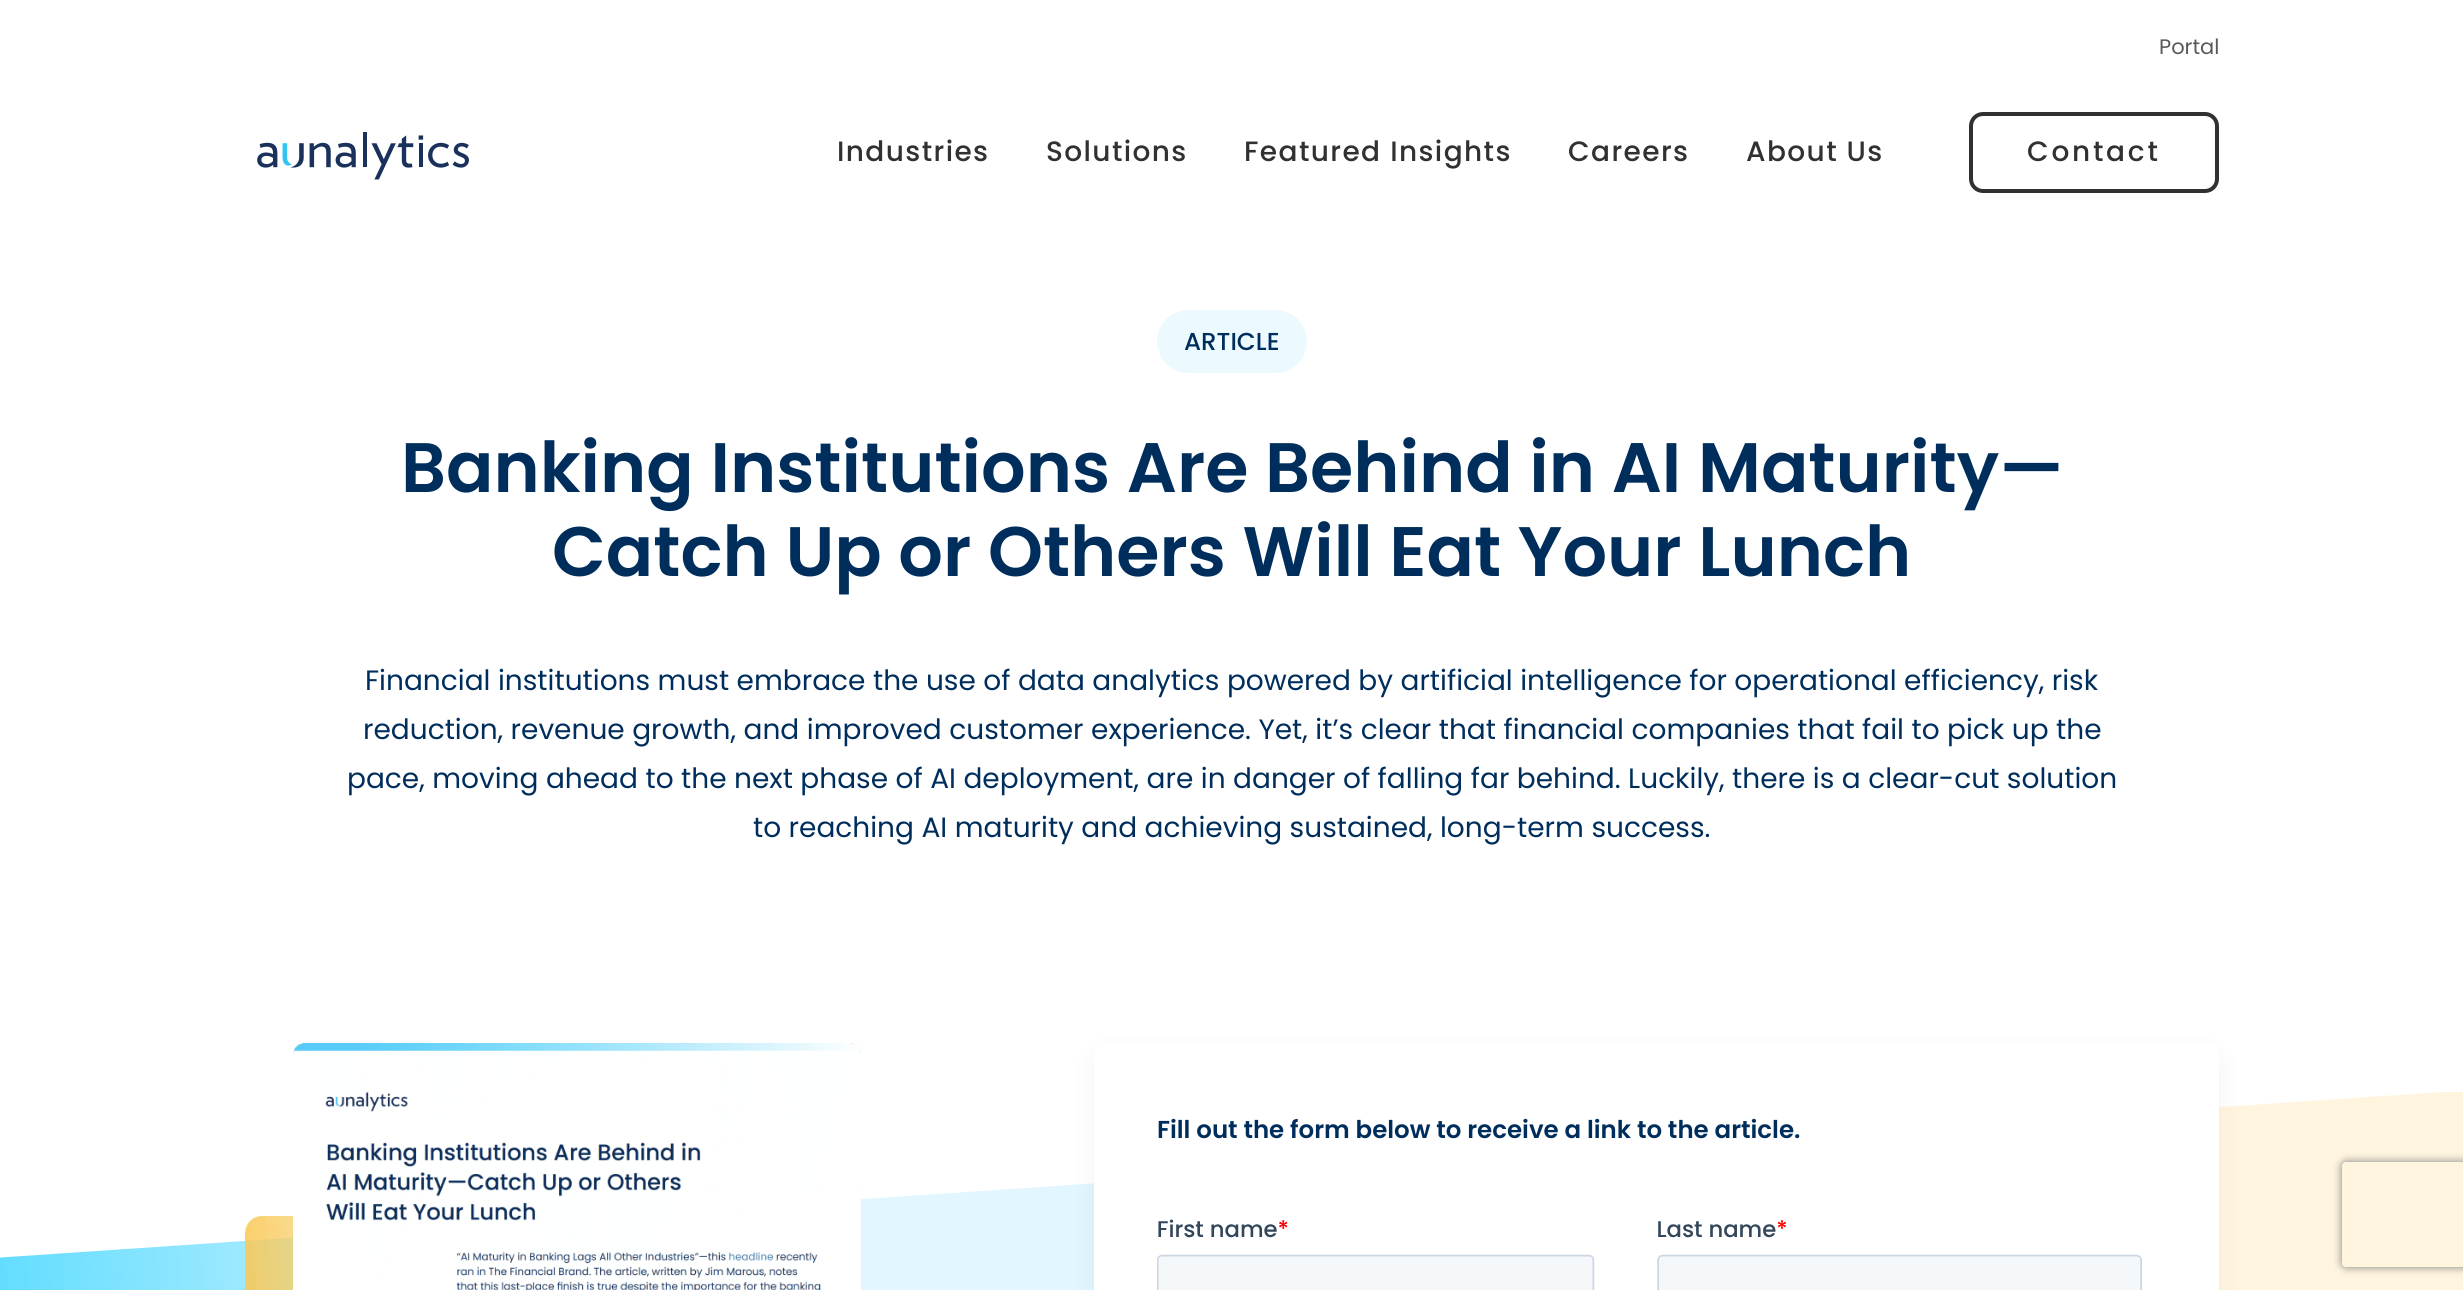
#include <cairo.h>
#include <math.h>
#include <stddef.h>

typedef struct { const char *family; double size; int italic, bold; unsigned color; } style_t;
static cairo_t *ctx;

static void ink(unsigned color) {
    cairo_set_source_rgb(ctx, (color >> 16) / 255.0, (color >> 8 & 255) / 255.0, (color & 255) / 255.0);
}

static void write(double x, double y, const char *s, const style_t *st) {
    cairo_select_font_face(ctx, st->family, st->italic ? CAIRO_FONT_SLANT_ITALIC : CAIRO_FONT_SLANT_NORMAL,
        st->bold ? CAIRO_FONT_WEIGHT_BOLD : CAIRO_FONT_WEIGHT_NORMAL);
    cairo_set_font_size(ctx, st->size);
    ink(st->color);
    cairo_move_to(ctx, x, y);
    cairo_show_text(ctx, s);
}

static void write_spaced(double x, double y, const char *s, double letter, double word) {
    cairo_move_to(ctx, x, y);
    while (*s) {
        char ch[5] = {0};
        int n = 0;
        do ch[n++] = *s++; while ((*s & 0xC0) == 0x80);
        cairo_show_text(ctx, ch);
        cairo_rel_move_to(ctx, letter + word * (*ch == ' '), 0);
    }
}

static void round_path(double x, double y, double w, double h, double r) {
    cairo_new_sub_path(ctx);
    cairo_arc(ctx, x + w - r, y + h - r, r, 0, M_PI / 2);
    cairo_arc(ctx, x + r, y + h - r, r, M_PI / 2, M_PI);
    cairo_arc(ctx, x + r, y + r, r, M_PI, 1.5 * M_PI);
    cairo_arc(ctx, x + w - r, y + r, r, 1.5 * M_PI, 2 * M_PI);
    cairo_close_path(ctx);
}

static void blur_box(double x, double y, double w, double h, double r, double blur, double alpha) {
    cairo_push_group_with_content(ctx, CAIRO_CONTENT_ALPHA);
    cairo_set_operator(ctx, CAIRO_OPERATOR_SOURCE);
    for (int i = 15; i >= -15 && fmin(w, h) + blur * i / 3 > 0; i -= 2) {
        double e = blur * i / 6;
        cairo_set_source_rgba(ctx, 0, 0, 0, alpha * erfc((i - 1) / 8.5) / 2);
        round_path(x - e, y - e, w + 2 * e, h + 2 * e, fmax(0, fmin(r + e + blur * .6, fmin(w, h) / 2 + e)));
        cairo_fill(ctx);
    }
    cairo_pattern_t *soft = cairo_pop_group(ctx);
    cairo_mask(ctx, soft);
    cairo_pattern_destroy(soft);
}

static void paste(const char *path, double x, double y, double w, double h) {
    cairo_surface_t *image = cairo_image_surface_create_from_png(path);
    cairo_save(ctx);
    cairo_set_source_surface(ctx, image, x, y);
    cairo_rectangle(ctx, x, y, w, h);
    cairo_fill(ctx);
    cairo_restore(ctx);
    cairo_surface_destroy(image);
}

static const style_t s1 = {"Poppins", 21, 0, 0, 0x595a5c};
static const style_t s2 = {"Poppins Medium", 24.5, 0, 0, 0x002e5c};
static const style_t s3 = {"Poppins SemiBold", 70, 0, 0, 0x002e5c};
static const style_t s4 = {"Poppins", 28, 0, 0, 0x002e5c};
static const style_t s5 = {"Poppins SemiBold", 24.5, 0, 0, 0x002e5c};

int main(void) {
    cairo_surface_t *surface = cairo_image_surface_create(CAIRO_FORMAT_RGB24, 2463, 1290);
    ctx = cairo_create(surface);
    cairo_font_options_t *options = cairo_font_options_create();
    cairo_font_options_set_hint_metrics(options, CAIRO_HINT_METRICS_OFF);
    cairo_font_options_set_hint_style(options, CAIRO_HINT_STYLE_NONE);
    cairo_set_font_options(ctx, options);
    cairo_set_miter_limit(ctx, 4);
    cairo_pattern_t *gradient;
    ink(0xffffff);
    cairo_paint(ctx);
    write(2159, 54, "Portal", &s1);
    paste("pic1.png", 257, 132, 212, 48);
    cairo_select_font_face(ctx, "Poppins Medium", CAIRO_FONT_SLANT_NORMAL, CAIRO_FONT_WEIGHT_NORMAL);
    cairo_set_font_size(ctx, 28);
    ink(0x303133);
    write_spaced(837, 161, "Industries", 1.4, 0);
    write_spaced(1046, 161, "Solutions", 1.4, 0);
    write_spaced(1244, 161, "Featured Insights", 1.4, 0);
    write_spaced(1568, 161, "Careers", 1.4, 0);
    write_spaced(1746, 161, "About Us", 1.4, 0);
    round_path(1971, 114, 246, 77, 12);
    cairo_set_line_width(ctx, 4);
    cairo_stroke(ctx);
    write_spaced(2027, 161, "Contact", 2.75, 0);
    ink(0xecfaff);
    round_path(1157, 310, 150, 63, 31.5);
    cairo_fill(ctx);
    write(1184, 350, "ARTICLE", &s2);
    write(401, 492, "Banking Institutions Are Behind in AI Maturity—", &s3);
    write(552, 576, "Catch Up or Others Will Eat Your Lunch", &s3);
    write(365, 690, "Financial institutions must embrace the use of data analytics powered by artificial intelligence for operational efficiency, risk", &s4);
    write(363, 739, "reduction, revenue growth, and improved customer experience. Yet, it’s clear that financial companies that fail to pick up the", &s4);
    write(347, 788, "pace, moving ahead to the next phase of AI deployment, are in danger of falling far behind. Luckily, there is a clear-cut solution", &s4);
    write(753, 837, "to reaching AI maturity and achieving sustained, long-term success.", &s4);
    gradient = cairo_pattern_create_radial(2471, 1092, 0, 2471, 1092, 2658);
    cairo_pattern_add_color_stop_rgba(gradient, 0.26, 1, 0.961, 0.875, 1);
    cairo_pattern_add_color_stop_rgba(gradient, 0.4, 0.882, 0.965, 1, 1);
    cairo_pattern_add_color_stop_rgba(gradient, 0.73, 0.882, 0.965, 1, 1);
    cairo_pattern_add_color_stop_rgba(gradient, 1, 0.22, 0.835, 1, 1);
    cairo_set_source(ctx, gradient);
    cairo_pattern_destroy(gradient);
    cairo_rectangle(ctx, 0, 1092, 2463, 198);
    cairo_fill(ctx);
    ink(0xffffff);
    cairo_new_path(ctx);
    cairo_move_to(ctx, -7, 1090);
    cairo_line_to(ctx, -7, 1258);
    cairo_line_to(ctx, 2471, 1090);
    cairo_close_path(ctx);
    cairo_fill(ctx);
    paste("pic2.png", 245, 1043, 616, 247);
    ink(0x000000);
    blur_box(1094, 1052, 1125, 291, 14, 13, 0.05);
    ink(0xffffff);
    round_path(1094, 1043, 1125, 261, 14);
    cairo_fill(ctx);
    write(1157, 1138, "Fill out the form below to receive a link to the article.", &s5);
    paste("pic3.png", 1157, 1219, 985, 71);
    cairo_save(ctx);
    cairo_set_fill_rule(ctx, CAIRO_FILL_RULE_EVEN_ODD);
    cairo_new_path(ctx);
    cairo_move_to(ctx, 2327, 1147);
    cairo_line_to(ctx, 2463, 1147);
    cairo_line_to(ctx, 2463, 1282);
    cairo_line_to(ctx, 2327, 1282);
    cairo_close_path(ctx);
    cairo_move_to(ctx, 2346, 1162);
    cairo_line_to(ctx, 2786, 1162);
    cairo_curve_to(ctx, 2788, 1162, 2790, 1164, 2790, 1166);
    cairo_line_to(ctx, 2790, 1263);
    cairo_curve_to(ctx, 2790, 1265, 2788, 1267, 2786, 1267);
    cairo_line_to(ctx, 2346, 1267);
    cairo_curve_to(ctx, 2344, 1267, 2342, 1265, 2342, 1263);
    cairo_line_to(ctx, 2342, 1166);
    cairo_curve_to(ctx, 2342, 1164, 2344, 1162, 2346, 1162);
    cairo_close_path(ctx);
    cairo_clip(ctx);
    ink(0x808080);
    blur_box(2342, 1162, 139, 105, 4, 4.5, 1);
    cairo_restore(ctx);
    cairo_surface_write_to_png(surface, "screenshot.png");
    cairo_font_options_destroy(options);
    cairo_destroy(ctx);
    cairo_surface_destroy(surface);
    return 0;
}
